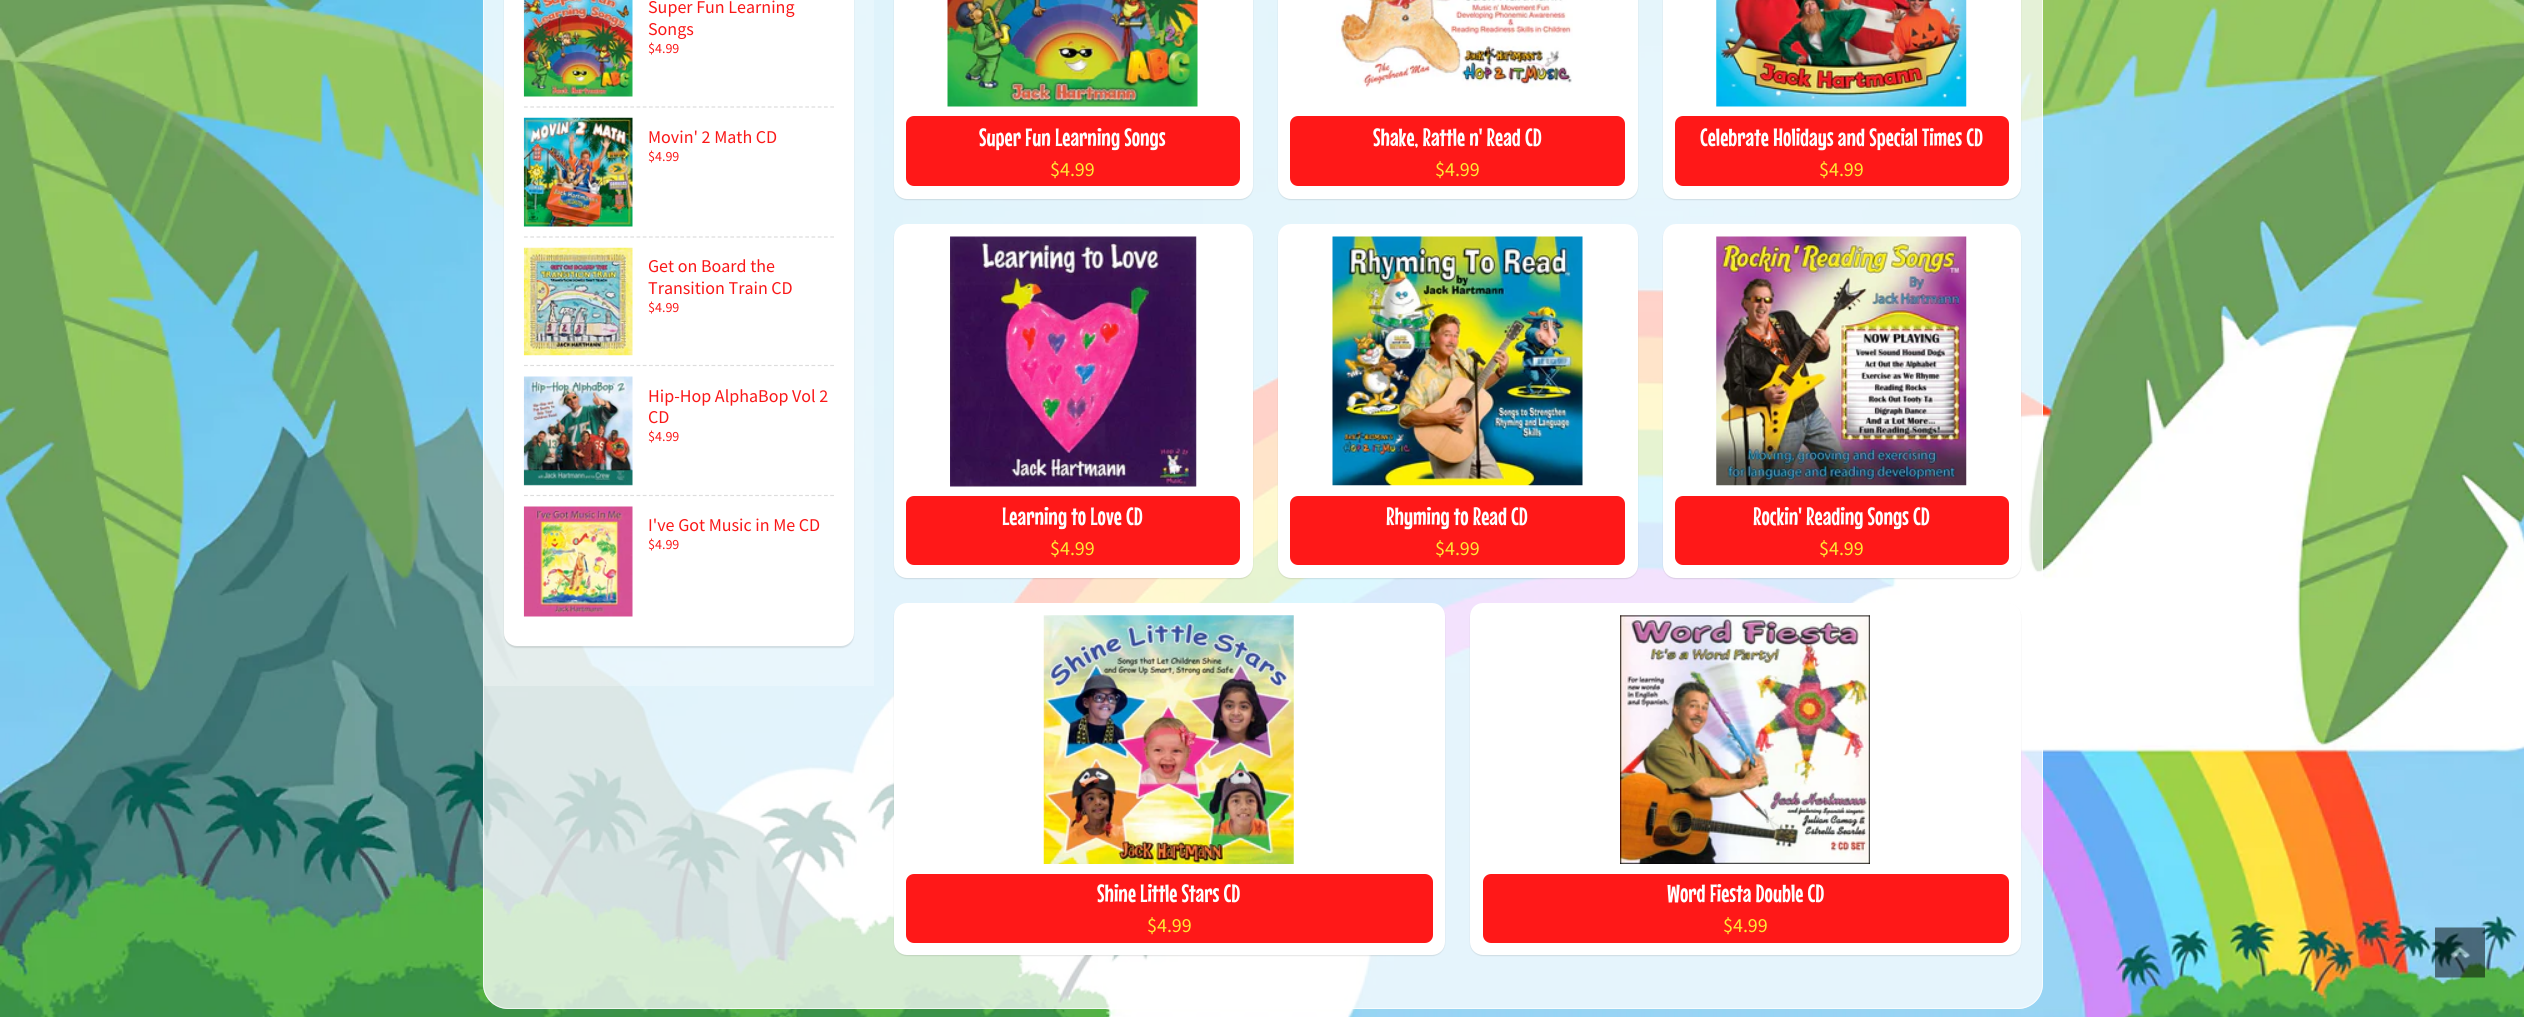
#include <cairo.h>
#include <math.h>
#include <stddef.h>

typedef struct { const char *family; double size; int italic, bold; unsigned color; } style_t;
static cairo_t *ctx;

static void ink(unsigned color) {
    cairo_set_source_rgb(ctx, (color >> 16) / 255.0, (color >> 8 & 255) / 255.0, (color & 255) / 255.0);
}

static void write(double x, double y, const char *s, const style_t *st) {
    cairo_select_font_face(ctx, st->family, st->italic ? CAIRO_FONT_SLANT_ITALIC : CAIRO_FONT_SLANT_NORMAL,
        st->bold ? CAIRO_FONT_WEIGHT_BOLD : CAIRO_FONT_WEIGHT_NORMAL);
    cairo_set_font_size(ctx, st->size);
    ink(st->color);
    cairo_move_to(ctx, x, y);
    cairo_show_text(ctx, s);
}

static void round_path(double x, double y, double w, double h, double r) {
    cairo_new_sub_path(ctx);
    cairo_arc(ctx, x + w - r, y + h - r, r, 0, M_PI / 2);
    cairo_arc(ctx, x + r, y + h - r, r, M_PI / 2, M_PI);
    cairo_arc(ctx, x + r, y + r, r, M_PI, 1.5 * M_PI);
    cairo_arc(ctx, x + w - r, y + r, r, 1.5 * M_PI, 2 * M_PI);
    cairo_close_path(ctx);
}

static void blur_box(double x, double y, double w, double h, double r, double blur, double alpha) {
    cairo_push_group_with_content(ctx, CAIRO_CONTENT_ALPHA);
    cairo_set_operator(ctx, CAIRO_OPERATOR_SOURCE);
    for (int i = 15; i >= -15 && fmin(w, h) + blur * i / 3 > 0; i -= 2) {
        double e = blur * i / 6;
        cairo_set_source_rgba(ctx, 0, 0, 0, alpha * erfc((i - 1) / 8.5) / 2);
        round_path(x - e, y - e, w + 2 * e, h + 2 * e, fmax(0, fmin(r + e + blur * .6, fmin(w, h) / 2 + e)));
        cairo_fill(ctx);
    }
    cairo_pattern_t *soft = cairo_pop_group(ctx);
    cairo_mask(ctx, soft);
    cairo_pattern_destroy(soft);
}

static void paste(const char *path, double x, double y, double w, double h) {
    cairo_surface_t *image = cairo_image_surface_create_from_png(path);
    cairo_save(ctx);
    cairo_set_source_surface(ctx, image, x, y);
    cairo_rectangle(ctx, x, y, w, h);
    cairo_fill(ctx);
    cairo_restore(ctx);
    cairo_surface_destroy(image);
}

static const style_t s1 = {"Source Sans Pro", 18, 0, 0, 0xfa1818};
static const style_t s2 = {"Source Sans Pro", 14, 0, 0, 0xfa1818};
static const style_t s3 = {"Mouse Memoirs", 25, 0, 0, 0xffffff};
static const style_t s4 = {"Source Sans Pro", 20, 0, 0, 0xffe936};

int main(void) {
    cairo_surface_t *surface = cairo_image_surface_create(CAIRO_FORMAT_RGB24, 2524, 1017);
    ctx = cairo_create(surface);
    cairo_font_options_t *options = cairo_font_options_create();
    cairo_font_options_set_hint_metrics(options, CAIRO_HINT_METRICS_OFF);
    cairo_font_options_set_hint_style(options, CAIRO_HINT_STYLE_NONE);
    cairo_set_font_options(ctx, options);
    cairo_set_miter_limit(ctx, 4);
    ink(0xffffff);
    cairo_paint(ctx);
    paste("pic1.png", 0, 0, 2524, 1017);
    cairo_set_source_rgba(ctx, 1, 1, 1, 0.75);
    round_path(483, -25, 1560, 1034, 25);
    cairo_fill(ctx);
    round_path(483.5, -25.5, 1559, 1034, 24.5);
    cairo_set_source_rgba(ctx, 1, 1, 1, 0.7);
    cairo_set_line_width(ctx, 1);
    cairo_stroke(ctx);
    cairo_set_source_rgba(ctx, 1, 1, 1, 0.25);
    cairo_rectangle(ctx, 484, 0, 390, 686);
    cairo_fill(ctx);
    ink(0x000000);
    blur_box(504, -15, 350, 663, 13, 0.5, 0.1);
    ink(0xffffff);
    round_path(504, -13, 350, 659, 13);
    cairo_fill(ctx);
    paste("pic2.png", 523, 0, 110, 97);
    write(648, 13, "Super Fun Learning", &s1);
    write(648, 35, "Songs", &s1);
    write(648, 53, "$4.99", &s2);
    cairo_new_path(ctx);
    cairo_move_to(ctx, 524, 107);
    cairo_line_to(ctx, 834, 107);
    ink(0xdddddd);
    cairo_set_line_width(ctx, 1.2);
    cairo_set_dash(ctx, (double[]){3.75, 2.5}, 2, 0);
    cairo_stroke(ctx);
    paste("pic3.png", 523, 117, 110, 110);
    write(648, 143, "Movin' 2 Math CD", &s1);
    write(648, 161, "$4.99", &s2);
    cairo_new_path(ctx);
    cairo_move_to(ctx, 524, 237);
    cairo_line_to(ctx, 834, 237);
    ink(0xdddddd);
    cairo_stroke(ctx);
    paste("pic4.png", 523, 247, 110, 109);
    write(648, 272, "Get on Board the", &s1);
    write(648, 294, "Transition Train CD", &s1);
    write(648, 312, "$4.99", &s2);
    cairo_new_path(ctx);
    cairo_move_to(ctx, 524, 365.5);
    cairo_line_to(ctx, 834, 365.5);
    ink(0xdddddd);
    cairo_stroke(ctx);
    paste("pic5.png", 523, 376, 110, 110);
    write(648, 402, "Hip-Hop AlphaBop Vol 2", &s1);
    write(648, 423, "CD", &s1);
    write(648, 441, "$4.99", &s2);
    cairo_new_path(ctx);
    cairo_move_to(ctx, 524, 495.5);
    cairo_line_to(ctx, 834, 495.5);
    ink(0xdddddd);
    cairo_stroke(ctx);
    paste("pic6.png", 523, 506, 110, 111);
    write(648, 531, "I've Got Music in Me CD", &s1);
    write(648, 549, "$4.99", &s2);
    ink(0x000000);
    blur_box(894, -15, 359, 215, 13, 0.5, 0.1);
    ink(0xffffff);
    round_path(894, -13, 359, 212, 13);
    cairo_fill(ctx);
    paste("pic7.png", 947, 0, 251, 107);
    ink(0xff1818);
    round_path(906, 116, 334, 70, 8);
    cairo_fill(ctx);
    write(979, 146, "Super Fun Learning Songs", &s3);
    write(1050, 176, "$4.99", &s4);
    ink(0x000000);
    blur_box(1278, -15, 360, 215, 13, 0.5, 0.1);
    ink(0xffffff);
    round_path(1278, -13, 360, 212, 13);
    cairo_fill(ctx);
    paste("pic8.png", 1336, 0, 237, 88);
    ink(0xff1818);
    round_path(1290, 116, 335, 70, 8);
    cairo_fill(ctx);
    write(1373, 146, "Shake, Rattle n' Read CD", &s3);
    write(1435, 176, "$4.99", &s4);
    ink(0x000000);
    blur_box(1663, -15, 358, 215, 13, 0.5, 0.1);
    ink(0xffffff);
    round_path(1663, -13, 358, 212, 13);
    cairo_fill(ctx);
    paste("pic9.png", 1716, 0, 251, 107);
    ink(0xff1818);
    round_path(1675, 116, 334, 70, 8);
    cairo_fill(ctx);
    write(1700, 146, "Celebrate Holidays and Special Times CD", &s3);
    write(1819, 176, "$4.99", &s4);
    ink(0x000000);
    blur_box(894, 225, 359, 354, 13, 0.5, 0.1);
    ink(0xffffff);
    round_path(894, 224, 359, 354, 13);
    cairo_fill(ctx);
    paste("pic10.png", 950, 236, 247, 251);
    ink(0xff1818);
    round_path(906, 496, 334, 69, 8);
    cairo_fill(ctx);
    write(1002, 525, "Learning to Love CD", &s3);
    write(1050, 555, "$4.99", &s4);
    ink(0x000000);
    blur_box(1278, 225, 360, 354, 13, 0.5, 0.1);
    ink(0xffffff);
    round_path(1278, 224, 360, 354, 13);
    cairo_fill(ctx);
    paste("pic11.png", 1332, 236, 251, 250);
    ink(0xff1818);
    round_path(1290, 496, 335, 69, 8);
    cairo_fill(ctx);
    write(1386, 525, "Rhyming to Read CD", &s3);
    write(1435, 555, "$4.99", &s4);
    ink(0x000000);
    blur_box(1663, 225, 358, 354, 13, 0.5, 0.1);
    ink(0xffffff);
    round_path(1663, 224, 358, 354, 13);
    cairo_fill(ctx);
    paste("pic12.png", 1716, 236, 251, 250);
    ink(0xff1818);
    round_path(1675, 496, 334, 69, 8);
    cairo_fill(ctx);
    write(1753, 525, "Rockin' Reading Songs CD", &s3);
    write(1819, 555, "$4.99", &s4);
    ink(0x000000);
    blur_box(894, 604, 551, 352, 13, 0.5, 0.1);
    ink(0xffffff);
    round_path(894, 603, 551, 352, 13);
    cairo_fill(ctx);
    paste("pic13.png", 1043, 615, 251, 249);
    ink(0xff1818);
    round_path(906, 874, 527, 69, 8);
    cairo_fill(ctx);
    write(1097, 902, "Shine Little Stars CD", &s3);
    write(1147, 932, "$4.99", &s4);
    ink(0x000000);
    blur_box(1470, 604, 551, 352, 13, 0.5, 0.1);
    ink(0xffffff);
    round_path(1470, 603, 551, 352, 13);
    cairo_fill(ctx);
    paste("pic14.png", 1620, 615, 250, 249);
    ink(0xff1818);
    round_path(1483, 874, 526, 69, 8);
    cairo_fill(ctx);
    write(1667, 902, "Word Fiesta Double CD", &s3);
    write(1723, 932, "$4.99", &s4);
    paste("pic15.png", 2435, 927, 50, 51);
    cairo_surface_write_to_png(surface, "screenshot.png");
    cairo_font_options_destroy(options);
    cairo_destroy(ctx);
    cairo_surface_destroy(surface);
    return 0;
}
